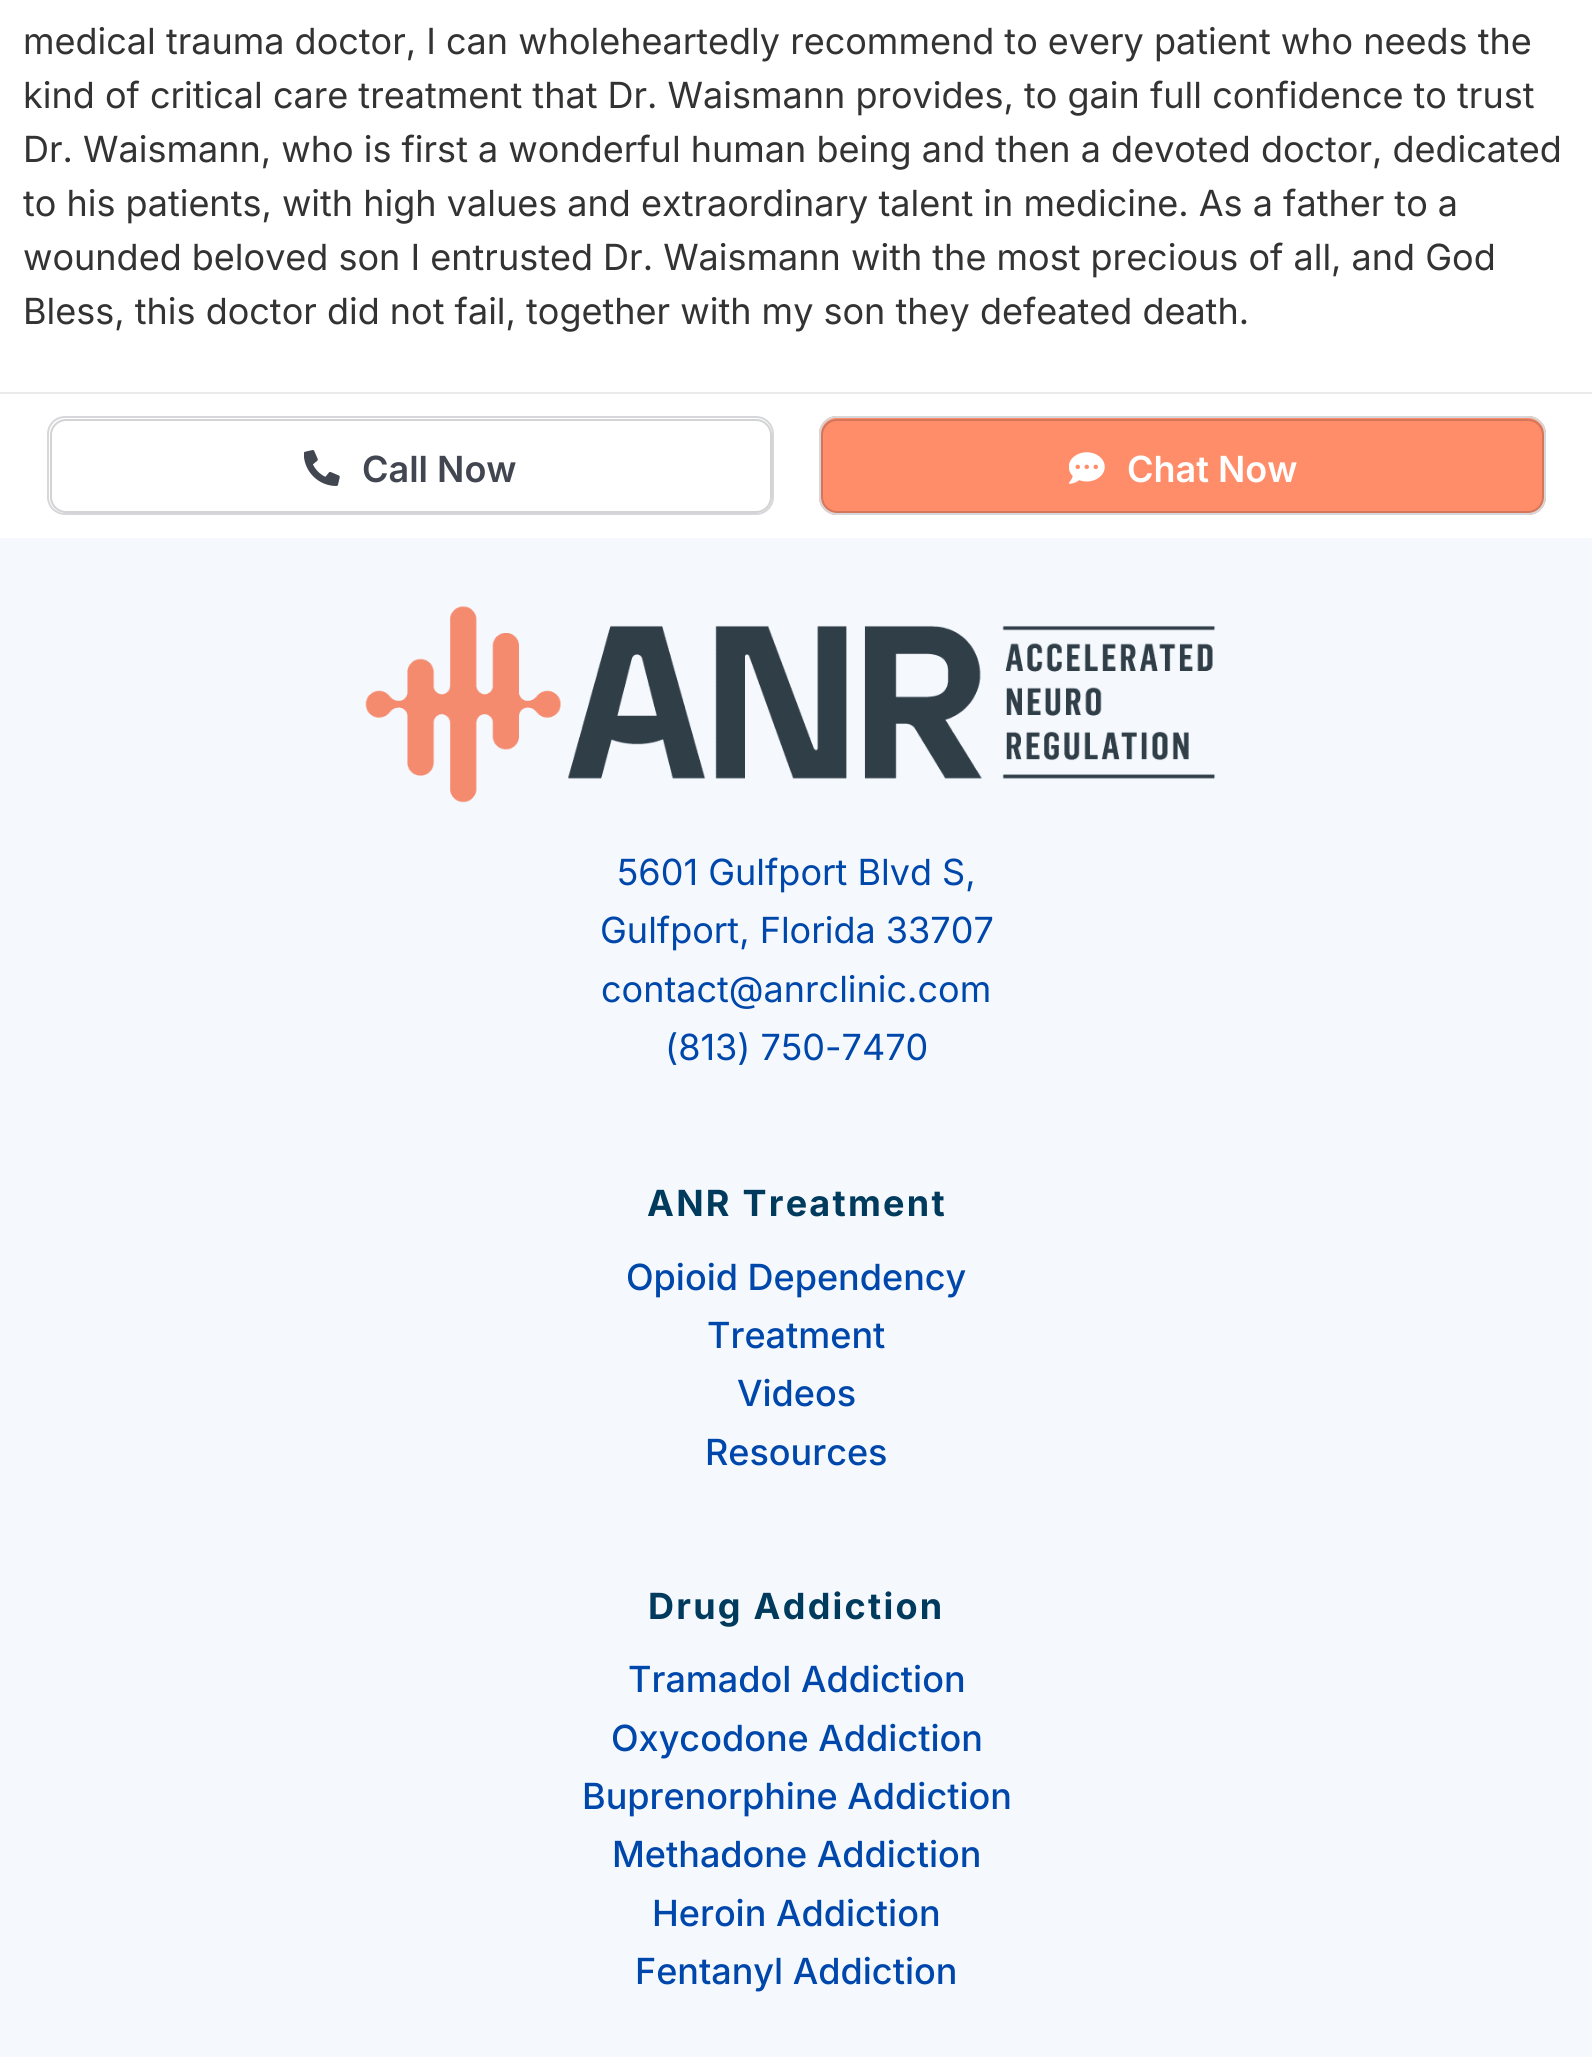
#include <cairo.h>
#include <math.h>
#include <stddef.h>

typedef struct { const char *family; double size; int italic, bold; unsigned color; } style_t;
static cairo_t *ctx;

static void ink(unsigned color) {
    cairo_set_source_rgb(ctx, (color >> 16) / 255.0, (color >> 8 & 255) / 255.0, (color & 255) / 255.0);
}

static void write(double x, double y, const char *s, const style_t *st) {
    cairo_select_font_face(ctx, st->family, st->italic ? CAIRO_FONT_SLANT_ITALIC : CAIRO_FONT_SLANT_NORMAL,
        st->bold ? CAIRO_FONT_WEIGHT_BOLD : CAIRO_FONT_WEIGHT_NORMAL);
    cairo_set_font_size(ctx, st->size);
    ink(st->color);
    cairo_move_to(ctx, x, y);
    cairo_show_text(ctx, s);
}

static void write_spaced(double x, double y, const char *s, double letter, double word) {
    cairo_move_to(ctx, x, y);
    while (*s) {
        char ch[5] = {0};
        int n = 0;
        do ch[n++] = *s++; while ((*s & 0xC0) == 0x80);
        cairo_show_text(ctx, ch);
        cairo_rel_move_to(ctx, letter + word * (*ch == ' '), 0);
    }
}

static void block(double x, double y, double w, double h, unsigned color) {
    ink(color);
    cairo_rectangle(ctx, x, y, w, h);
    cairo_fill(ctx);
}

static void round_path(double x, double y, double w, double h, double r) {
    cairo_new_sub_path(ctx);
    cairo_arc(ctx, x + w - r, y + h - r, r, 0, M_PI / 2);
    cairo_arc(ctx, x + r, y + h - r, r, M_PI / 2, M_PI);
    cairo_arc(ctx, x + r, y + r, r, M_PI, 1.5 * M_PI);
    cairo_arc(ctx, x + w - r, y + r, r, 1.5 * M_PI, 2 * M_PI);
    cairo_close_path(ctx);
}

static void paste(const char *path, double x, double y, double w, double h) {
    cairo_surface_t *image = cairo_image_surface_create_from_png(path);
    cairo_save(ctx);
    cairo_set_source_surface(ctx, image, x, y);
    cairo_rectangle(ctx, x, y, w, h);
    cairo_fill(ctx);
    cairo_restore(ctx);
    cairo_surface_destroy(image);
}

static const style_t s1 = {"Inter", 36, 0, 0, 0x333333};
static const style_t s2 = {"Inter SemiBold", 36, 0, 0, 0x414651};
static const style_t s3 = {"Inter SemiBold", 36, 0, 0, 0xffffff};
static const style_t s4 = {"Inter", 36, 0, 0, 0x0047ab};
static const style_t s5 = {"Inter Medium", 36, 0, 0, 0x0047ab};

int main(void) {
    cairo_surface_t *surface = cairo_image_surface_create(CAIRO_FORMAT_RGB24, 1592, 2057);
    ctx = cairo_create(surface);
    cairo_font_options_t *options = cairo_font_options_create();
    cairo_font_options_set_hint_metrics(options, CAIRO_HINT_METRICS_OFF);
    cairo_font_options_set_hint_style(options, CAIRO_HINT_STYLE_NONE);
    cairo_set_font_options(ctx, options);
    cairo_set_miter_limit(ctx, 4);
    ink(0xffffff);
    cairo_paint(ctx);
    write(23, 54, "medical trauma doctor, I can wholeheartedly recommend to every patient who needs the", &s1);
    write(23, 108, "kind of critical care treatment that Dr. Waismann provides, to gain full confidence to trust", &s1);
    write(23, 162, "Dr. Waismann, who is first a wonderful human being and then a devoted doctor, dedicated", &s1);
    write(23, 216, "to his patients, with high values and extraordinary talent in medicine. As a father to a", &s1);
    write(23, 270, "wounded beloved son I entrusted Dr. Waismann with the most precious of all, and God", &s1);
    write(23, 324, "Bless, this doctor did not fail, together with my son they defeated death.", &s1);
    block(0, 392, 1592, 2, 0xe9eaeb);
    round_path(51, 420, 720, 92, 15);
    ink(0xd3d3d4);
    cairo_stroke(ctx);
    round_path(48, 417, 725, 97, 17);
    ink(0xd5d7da);
    cairo_stroke(ctx);
    paste("pic1.png", 304, 450, 36, 36);
    write(362, 482, "Call Now", &s2);
    ink(0xff8d6a);
    round_path(819, 416, 727, 99, 18);
    cairo_fill(ctx);
    round_path(822, 420, 721, 92, 15);
    ink(0xd3765a);
    cairo_stroke(ctx);
    round_path(820, 417, 725, 97, 17);
    ink(0xd5d7da);
    cairo_stroke(ctx);
    paste("pic2.png", 1069, 452, 36, 32);
    write(1127, 482, "Chat Now", &s3);
    block(0, 538, 1592, 1519, 0xf5f9fe);
    paste("pic3.png", 365, 606, 851, 197);
    write(617, 885, "5601 Gulfport Blvd S,", &s4);
    write(600, 943, "Gulfport, Florida 33707", &s4);
    write(601, 1002, "contact@anrclinic.com", &s4);
    write(665, 1060, "(813) 750-7470", &s4);
    cairo_select_font_face(ctx, "Inter", CAIRO_FONT_SLANT_NORMAL, CAIRO_FONT_WEIGHT_BOLD);
    ink(0x003a5d);
    write_spaced(647, 1216, "ANR Treatment", 2.25, 0);
    write(626, 1290, "Opioid Dependency", &s5);
    write(707, 1348, "Treatment", &s5);
    write(737, 1406, "Videos", &s5);
    write(705, 1465, "Resources", &s5);
    cairo_select_font_face(ctx, "Inter", CAIRO_FONT_SLANT_NORMAL, CAIRO_FONT_WEIGHT_BOLD);
    ink(0x003a5d);
    write_spaced(648, 1619, "Drug Addiction", 2.25, 0);
    write(628, 1692, "Tramadol Addiction", &s5);
    write(611, 1751, "Oxycodone Addiction", &s5);
    write(582, 1809, "Buprenorphine Addiction", &s5);
    write(612, 1867, "Methadone Addiction", &s5);
    write(652, 1926, "Heroin Addiction", &s5);
    write(635, 1984, "Fentanyl Addiction", &s5);
    cairo_surface_write_to_png(surface, "screenshot.png");
    cairo_font_options_destroy(options);
    cairo_destroy(ctx);
    cairo_surface_destroy(surface);
    return 0;
}
